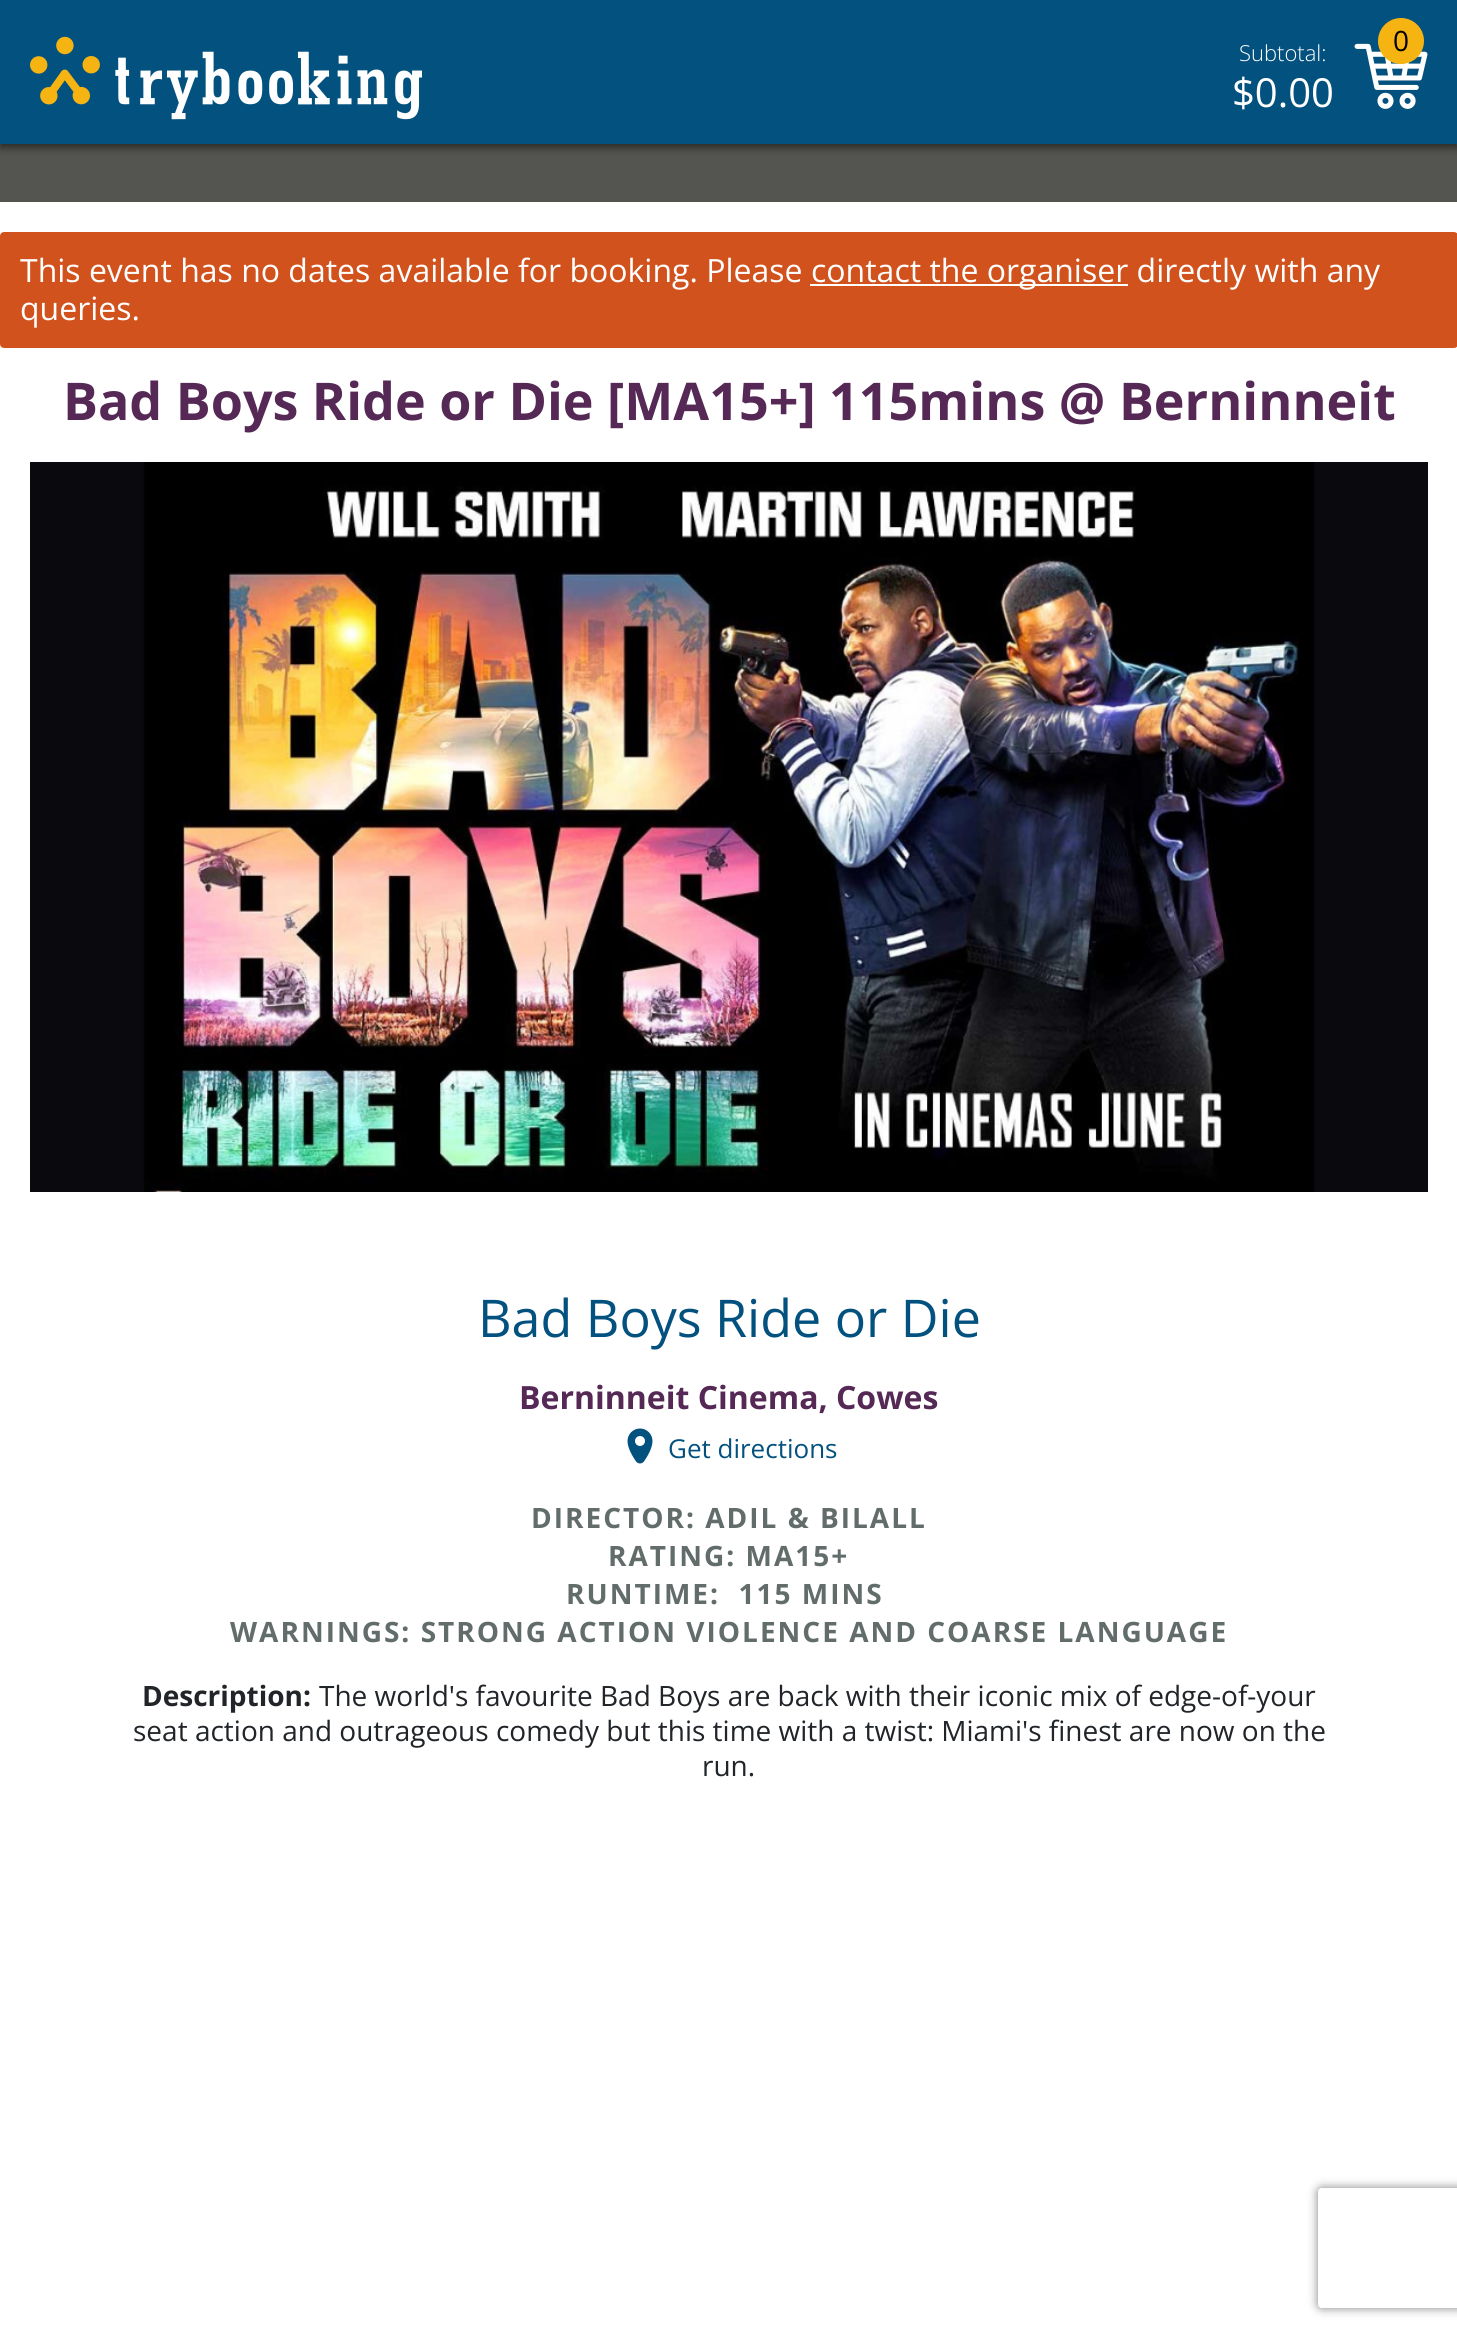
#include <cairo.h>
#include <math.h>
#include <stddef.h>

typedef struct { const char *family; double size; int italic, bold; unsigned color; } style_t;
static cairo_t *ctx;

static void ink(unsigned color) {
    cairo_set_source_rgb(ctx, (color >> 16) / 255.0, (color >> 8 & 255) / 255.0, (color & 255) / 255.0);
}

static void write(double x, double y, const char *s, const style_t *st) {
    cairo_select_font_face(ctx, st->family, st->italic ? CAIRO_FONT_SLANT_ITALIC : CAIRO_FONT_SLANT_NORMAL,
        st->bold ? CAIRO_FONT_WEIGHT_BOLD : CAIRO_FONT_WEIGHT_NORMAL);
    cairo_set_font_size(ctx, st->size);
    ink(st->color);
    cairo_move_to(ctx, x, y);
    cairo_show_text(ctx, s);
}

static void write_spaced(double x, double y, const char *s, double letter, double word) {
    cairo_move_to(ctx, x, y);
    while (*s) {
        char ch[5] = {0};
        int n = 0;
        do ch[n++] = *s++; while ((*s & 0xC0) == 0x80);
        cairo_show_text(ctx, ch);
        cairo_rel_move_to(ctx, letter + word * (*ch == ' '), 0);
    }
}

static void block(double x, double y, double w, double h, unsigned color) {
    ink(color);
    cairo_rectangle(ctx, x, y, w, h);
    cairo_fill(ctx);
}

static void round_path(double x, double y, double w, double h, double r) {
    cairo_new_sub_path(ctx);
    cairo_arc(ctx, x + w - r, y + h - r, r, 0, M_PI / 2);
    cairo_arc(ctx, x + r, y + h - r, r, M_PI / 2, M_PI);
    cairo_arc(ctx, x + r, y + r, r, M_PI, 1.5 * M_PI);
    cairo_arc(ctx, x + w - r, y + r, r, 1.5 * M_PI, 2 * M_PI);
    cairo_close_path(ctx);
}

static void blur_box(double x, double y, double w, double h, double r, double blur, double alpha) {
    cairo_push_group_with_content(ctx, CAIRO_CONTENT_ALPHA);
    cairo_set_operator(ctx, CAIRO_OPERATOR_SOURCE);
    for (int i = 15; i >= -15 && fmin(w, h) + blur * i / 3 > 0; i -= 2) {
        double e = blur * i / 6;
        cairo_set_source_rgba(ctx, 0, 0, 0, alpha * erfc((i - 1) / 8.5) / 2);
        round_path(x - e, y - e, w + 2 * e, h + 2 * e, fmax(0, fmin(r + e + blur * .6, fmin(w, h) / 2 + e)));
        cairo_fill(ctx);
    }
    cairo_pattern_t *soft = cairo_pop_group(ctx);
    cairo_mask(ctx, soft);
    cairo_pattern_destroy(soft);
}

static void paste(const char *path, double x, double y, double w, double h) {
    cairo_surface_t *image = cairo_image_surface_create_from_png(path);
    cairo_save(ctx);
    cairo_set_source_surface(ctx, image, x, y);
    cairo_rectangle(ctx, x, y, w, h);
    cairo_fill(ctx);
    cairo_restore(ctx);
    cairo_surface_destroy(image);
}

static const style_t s1 = {"Open Sans", 28, 0, 0, 0x000000};
static const style_t s2 = {"Open Sans Light", 22, 0, 0, 0xffffff};
static const style_t s3 = {"Open Sans", 40, 0, 0, 0xffffff};
static const style_t s4 = {"Open Sans", 32, 0, 0, 0xffffff};
static const style_t s5 = {"Open Sans", 52, 0, 1, 0x552856};
static const style_t s6 = {"Open Sans", 52, 0, 0, 0x03517e};
static const style_t s7 = {"Open Sans", 32, 0, 1, 0x552856};
static const style_t s8 = {"Open Sans", 26, 0, 0, 0x03517e};
static const style_t s9 = {"Open Sans", 28, 0, 1, 0x212529};
static const style_t s10 = {"Open Sans", 28, 0, 0, 0x212529};

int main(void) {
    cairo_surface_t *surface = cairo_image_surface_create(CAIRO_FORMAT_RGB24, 1457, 2335);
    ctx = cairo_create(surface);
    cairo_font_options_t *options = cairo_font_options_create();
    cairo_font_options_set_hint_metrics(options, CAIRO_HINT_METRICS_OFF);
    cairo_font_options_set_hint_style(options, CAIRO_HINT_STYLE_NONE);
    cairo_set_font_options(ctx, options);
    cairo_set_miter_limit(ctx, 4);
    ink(0x545550);
    cairo_paint(ctx);
    ink(0x000000);
    blur_box(0, 4, 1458, 144, 0, 4, 0.5);
    block(0, 0, 1457, 144, 0x03517e);
    paste("pic1.png", 30, 36, 392, 84);
    paste("pic2.png", 1354, 43, 74, 66);
    ink(0xf6b413);
    cairo_arc(ctx, 1401, 41, 23, 0, 2 * M_PI);
    cairo_fill(ctx);
    write(1393, 51, "0", &s1);
    write(1239, 61, "Subtotal:", &s2);
    write(1232, 107, "$0.00", &s3);
    block(0, 202, 1457, 2133, 0xffffff);
    ink(0xd1521d);
    round_path(1, 233, 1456, 114, 3);
    cairo_fill_preserve(ctx);
    cairo_stroke(ctx);
    write(20, 282, "This event has no dates available for booking. Please", &s4);
    block(810, 284, 318, 2, 0xffffff);
    write(811, 282, "contact the organiser directly with any", &s4);
    write(20, 320, "queries.", &s4);
    write(63, 420, "Bad Boys Ride or Die [MA15+] 115mins @ Berninneit", &s5);
    paste("pic3.png", 30, 462, 1398, 730);
    write(478, 1337, "Bad Boys Ride or Die", &s6);
    write(519, 1409, "Berninneit Cinema, Cowes", &s7);
    paste("pic4.png", 627, 1428, 26, 36);
    write(668, 1458, "Get directions", &s8);
    cairo_select_font_face(ctx, "Open Sans", CAIRO_FONT_SLANT_NORMAL, CAIRO_FONT_WEIGHT_BOLD);
    cairo_set_font_size(ctx, 28);
    ink(0x616c6b);
    write_spaced(531, 1528, "DIRECTOR: ADIL & BILALL", 2, 0);
    write_spaced(608, 1566, "RATING: MA15+", 2, 0);
    write_spaced(566, 1604, "RUNTIME:  115 MINS", 2, 0);
    write_spaced(230, 1642, "WARNINGS: STRONG ACTION VIOLENCE AND COARSE LANGUAGE", 2, 0);
    write(142, 1706, "Description:", &s9);
    write(319, 1706, "The world's favourite Bad Boys are back with their iconic mix of edge-of-your", &s10);
    write(133, 1741, "seat action and outrageous comedy but this time with a twist: Miami's finest are now on the", &s10);
    write(702, 1776, "run.", &s10);
    cairo_save(ctx);
    cairo_set_fill_rule(ctx, CAIRO_FILL_RULE_EVEN_ODD);
    cairo_new_path(ctx);
    cairo_move_to(ctx, 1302, 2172);
    cairo_line_to(ctx, 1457, 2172);
    cairo_line_to(ctx, 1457, 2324);
    cairo_line_to(ctx, 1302, 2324);
    cairo_close_path(ctx);
    cairo_move_to(ctx, 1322, 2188);
    cairo_line_to(ctx, 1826, 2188);
    cairo_curve_to(ctx, 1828, 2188, 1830, 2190, 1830, 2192);
    cairo_line_to(ctx, 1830, 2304);
    cairo_curve_to(ctx, 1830, 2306, 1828, 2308, 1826, 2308);
    cairo_line_to(ctx, 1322, 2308);
    cairo_curve_to(ctx, 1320, 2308, 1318, 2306, 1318, 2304);
    cairo_line_to(ctx, 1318, 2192);
    cairo_curve_to(ctx, 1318, 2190, 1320, 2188, 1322, 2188);
    cairo_close_path(ctx);
    cairo_clip(ctx);
    ink(0x808080);
    blur_box(1318, 2188, 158, 120, 4, 5, 1);
    cairo_restore(ctx);
    cairo_surface_write_to_png(surface, "screenshot.png");
    cairo_font_options_destroy(options);
    cairo_destroy(ctx);
    cairo_surface_destroy(surface);
    return 0;
}
